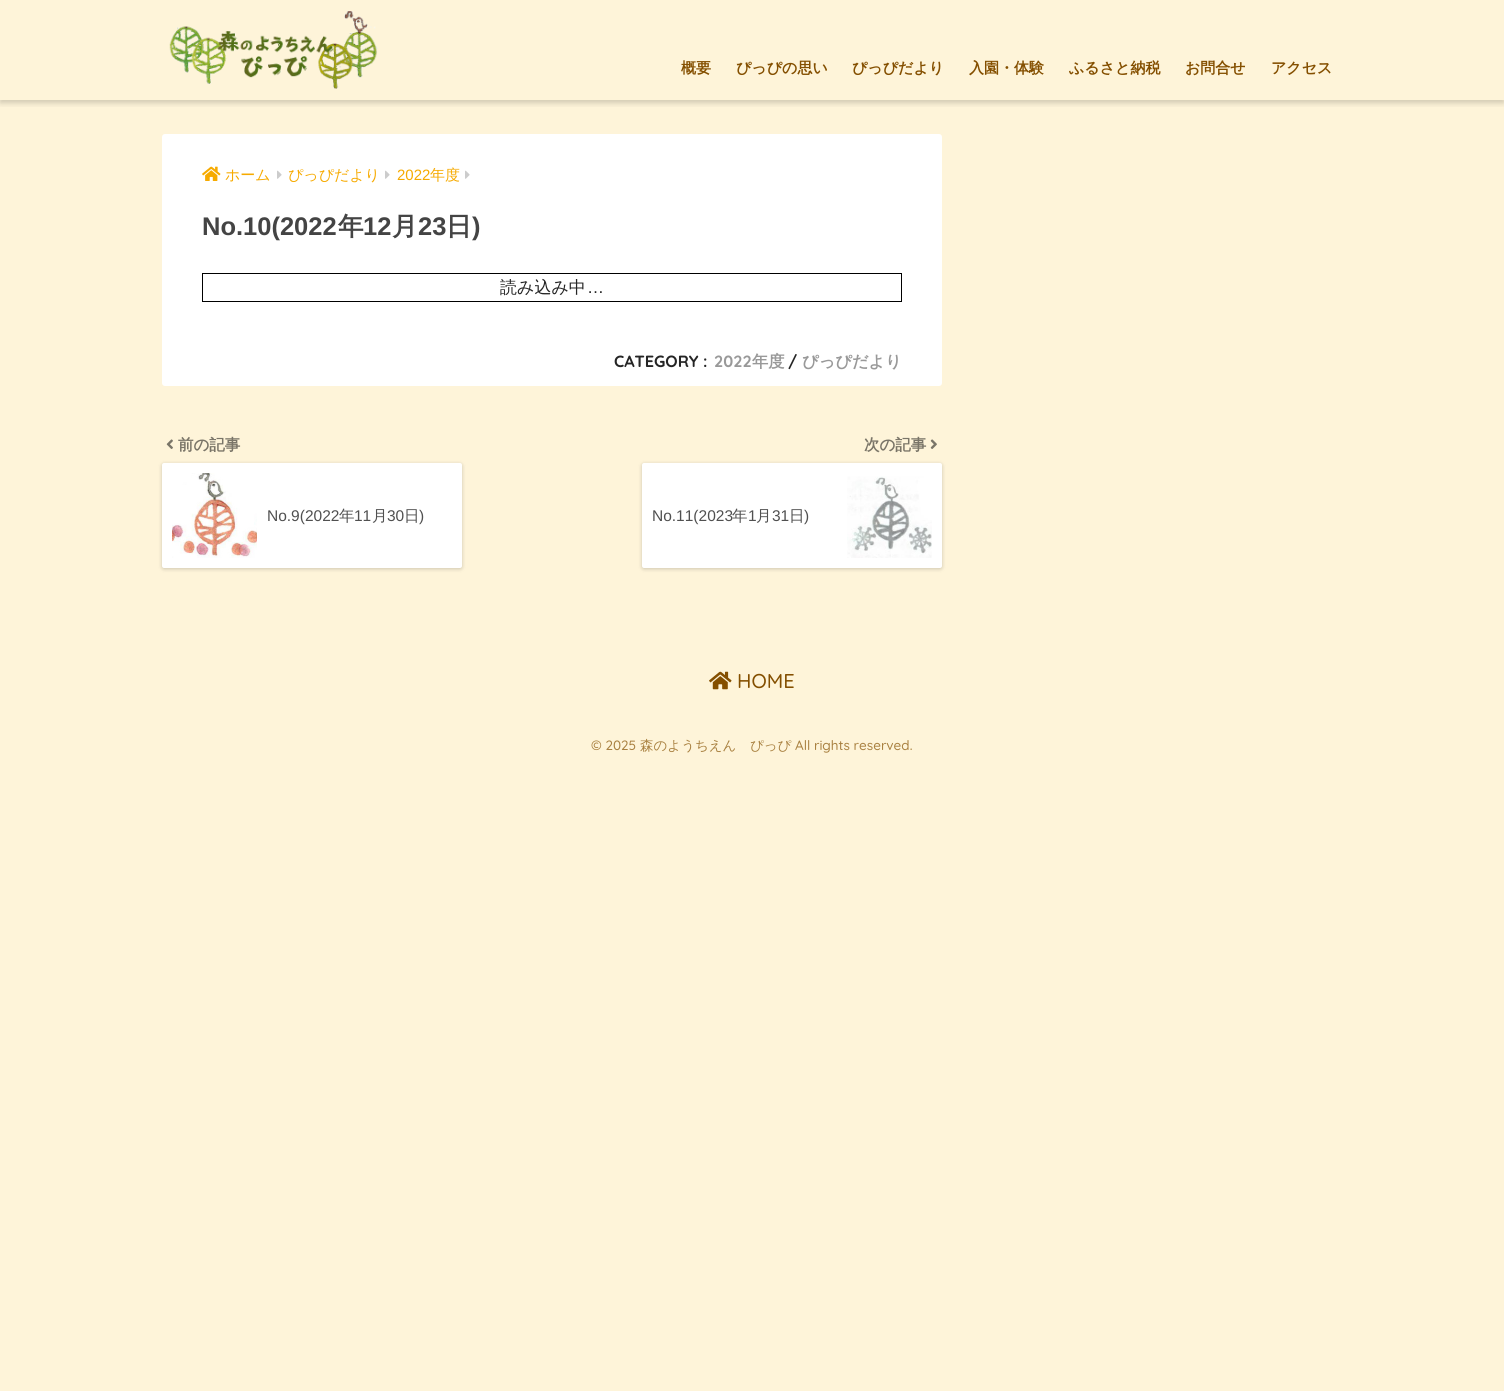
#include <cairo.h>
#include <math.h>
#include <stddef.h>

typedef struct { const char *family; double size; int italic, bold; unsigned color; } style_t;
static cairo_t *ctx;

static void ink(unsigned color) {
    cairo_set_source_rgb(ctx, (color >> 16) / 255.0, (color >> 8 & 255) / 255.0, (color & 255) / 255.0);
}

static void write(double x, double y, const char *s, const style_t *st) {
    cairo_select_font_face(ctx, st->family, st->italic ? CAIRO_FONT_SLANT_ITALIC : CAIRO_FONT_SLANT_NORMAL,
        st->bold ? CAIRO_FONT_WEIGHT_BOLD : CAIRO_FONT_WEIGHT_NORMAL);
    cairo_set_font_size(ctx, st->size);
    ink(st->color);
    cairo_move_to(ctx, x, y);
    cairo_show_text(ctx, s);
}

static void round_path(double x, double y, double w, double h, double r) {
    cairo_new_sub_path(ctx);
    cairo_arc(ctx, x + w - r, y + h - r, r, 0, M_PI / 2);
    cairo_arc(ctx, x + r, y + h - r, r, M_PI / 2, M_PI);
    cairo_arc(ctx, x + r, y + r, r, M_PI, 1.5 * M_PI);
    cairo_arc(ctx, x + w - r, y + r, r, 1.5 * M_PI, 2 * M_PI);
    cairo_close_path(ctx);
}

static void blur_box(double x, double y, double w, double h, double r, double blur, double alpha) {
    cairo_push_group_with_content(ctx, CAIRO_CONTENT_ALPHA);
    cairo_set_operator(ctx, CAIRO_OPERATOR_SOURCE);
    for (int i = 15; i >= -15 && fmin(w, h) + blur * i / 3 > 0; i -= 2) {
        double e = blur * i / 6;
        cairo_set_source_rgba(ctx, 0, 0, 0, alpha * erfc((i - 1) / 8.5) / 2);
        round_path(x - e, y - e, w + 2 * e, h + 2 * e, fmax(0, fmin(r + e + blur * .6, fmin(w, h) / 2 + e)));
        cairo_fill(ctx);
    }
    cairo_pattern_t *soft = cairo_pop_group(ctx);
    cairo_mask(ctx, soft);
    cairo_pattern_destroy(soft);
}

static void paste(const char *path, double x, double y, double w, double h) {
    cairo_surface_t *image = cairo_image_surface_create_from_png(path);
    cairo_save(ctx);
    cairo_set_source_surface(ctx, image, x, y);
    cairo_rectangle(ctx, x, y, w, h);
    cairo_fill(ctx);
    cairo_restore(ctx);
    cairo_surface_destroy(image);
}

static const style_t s1 = {"WenQuanYi Zen Hei", 15, 0, 1, 0x844f00};
static const style_t s2 = {"WenQuanYi Zen Hei Medium", 15, 0, 0, 0xf6aa00};
static const style_t s3 = {"Liberation Sans", 15, 0, 0, 0xf6aa00};
static const style_t s4 = {"Liberation Sans", 25.5, 0, 1, 0x444444};
static const style_t s5 = {"WenQuanYi Zen Hei", 25.5, 0, 1, 0x444444};
static const style_t s6 = {"WenQuanYi Zen Hei Medium", 17, 0, 0, 0x252525};
static const style_t s7 = {"Liberation Sans", 17, 0, 0, 0x252525};
static const style_t s8 = {"Quicksand", 16.25, 0, 1, 0x252525};
static const style_t s9 = {"Quicksand", 16.25, 0, 1, 0x999999};
static const style_t s10 = {"WenQuanYi Zen Hei", 16.25, 0, 1, 0x999999};
static const style_t s11 = {"WenQuanYi Zen Hei", 15.5, 0, 1, 0x7a7568};
static const style_t s12 = {"Liberation Sans", 15.5, 0, 0, 0x505050};
static const style_t s13 = {"WenQuanYi Zen Hei Medium", 15.5, 0, 0, 0x505050};
static const style_t s14 = {"Quicksand Medium", 20, 0, 0, 0x844f00};
static const style_t s15 = {"Quicksand Medium", 13.5, 0, 0, 0xa98141};
static const style_t s16 = {"WenQuanYi Zen Hei Medium", 13.5, 0, 0, 0xa98141};

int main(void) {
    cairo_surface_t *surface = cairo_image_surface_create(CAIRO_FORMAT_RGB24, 1504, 1391);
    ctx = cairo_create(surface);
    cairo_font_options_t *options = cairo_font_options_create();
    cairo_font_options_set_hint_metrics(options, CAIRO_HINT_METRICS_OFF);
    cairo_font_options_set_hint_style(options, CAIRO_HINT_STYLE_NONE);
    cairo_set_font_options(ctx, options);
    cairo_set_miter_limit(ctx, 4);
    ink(0xfef4d9);
    cairo_paint(ctx);
    cairo_save(ctx);
    cairo_rectangle(ctx, 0, 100, 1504, 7);
    cairo_clip(ctx);
    ink(0x000000);
    blur_box(0, 3, 1504, 100, 0, 3, 0.18);
    cairo_restore(ctx);
    paste("pic1.png", 169, 11, 209, 78);
    write(681, 73, "概要", &s1);
    write(736, 73, "ぴっぴの思い", &s1);
    write(852, 73, "ぴっぴだより", &s1);
    write(969, 73, "入園・体験", &s1);
    write(1069, 73, "ふるさと納税", &s1);
    write(1185, 73, "お問合せ", &s1);
    write(1271, 73, "アクセス", &s1);
    ink(0xffffff);
    round_path(162, 134, 780, 252, 3);
    cairo_fill(ctx);
    paste("pic2.png", 202, 166, 19, 15);
    write(225, 180, "ホーム", &s2);
    paste("pic3.png", 277, 170, 5, 9);
    write(288, 180, "ぴっぴだより", &s2);
    paste("pic3.png", 385, 170, 5, 9);
    write(397, 180, "2022", &s3);
    write(430, 180, "年度", &s2);
    paste("pic3.png", 465, 170, 5, 9);
    write(202, 235, "No.10(2022", &s4);
    write(338, 235, "年", &s5);
    write(363, 235, "12", &s4);
    write(392, 235, "月", &s5);
    write(418, 235, "23", &s4);
    write(446, 235, "日", &s5);
    write(472, 235, ")", &s4);
    cairo_rectangle(ctx, 202.5, 273.5, 699, 28);
    ink(0x000000);
    cairo_set_line_width(ctx, 1);
    cairo_stroke(ctx);
    write(500, 293, "読み込み中", &s6);
    write(587, 293, "…", &s7);
    write(614, 367, "CATEGORY :", &s8);
    write(714, 367, "2022", &s9);
    write(752, 367, "年度", &s10);
    write(788, 367, "/", &s8);
    write(802, 367, "ぴっぴだより", &s10);
    paste("pic4.png", 166, 439, 7, 10);
    write(178, 450, "前の記事", &s11);
    ink(0x000000);
    blur_box(162, 464, 300, 105, 2, 2, 0.2);
    ink(0xffffff);
    round_path(162, 463, 300, 105, 2);
    cairo_fill(ctx);
    paste("pic5.png", 172, 473, 85, 85);
    write(267, 521, "No.9(2022", &s12);
    write(339, 521, "年", &s13);
    write(354, 521, "11", &s12);
    write(372, 521, "月", &s13);
    write(387, 521, "30", &s12);
    write(404, 521, "日", &s13);
    write(419, 521, ")", &s12);
    write(864, 450, "次の記事", &s11);
    paste("pic6.png", 930, 439, 7, 10);
    ink(0x000000);
    blur_box(642, 464, 300, 105, 2, 2, 0.2);
    ink(0xffffff);
    round_path(642, 463, 300, 105, 2);
    cairo_fill(ctx);
    write(652, 521, "No.11(2023", &s12);
    write(732, 521, "年", &s13);
    write(748, 521, "1", &s12);
    write(756, 521, "月", &s13);
    write(772, 521, "31", &s12);
    write(789, 521, "日", &s13);
    write(804, 521, ")", &s12);
    paste("pic7.png", 847, 476, 85, 82);
    paste("pic8.png", 709, 671, 23, 19);
    write(737, 688, "HOME", &s14);
    write(591, 750, "© 2025", &s15);
    write(640, 750, "森のようちえん　ぴっぴ", &s16);
    write(795, 750, "All rights reserved.", &s15);
    cairo_surface_write_to_png(surface, "screenshot.png");
    cairo_font_options_destroy(options);
    cairo_destroy(ctx);
    cairo_surface_destroy(surface);
    return 0;
}
